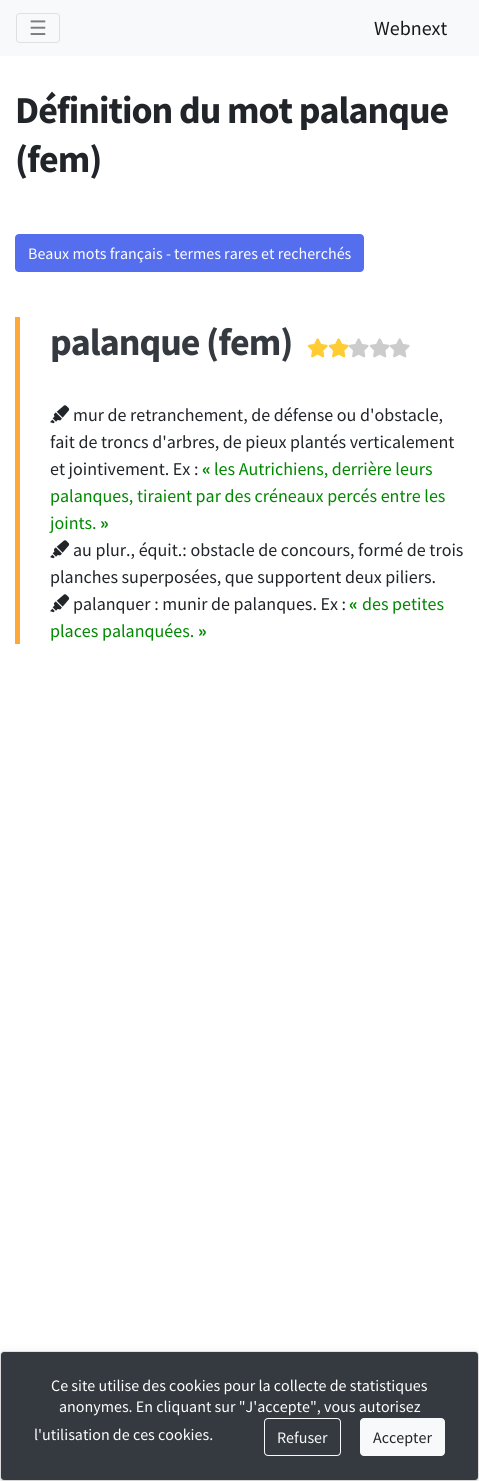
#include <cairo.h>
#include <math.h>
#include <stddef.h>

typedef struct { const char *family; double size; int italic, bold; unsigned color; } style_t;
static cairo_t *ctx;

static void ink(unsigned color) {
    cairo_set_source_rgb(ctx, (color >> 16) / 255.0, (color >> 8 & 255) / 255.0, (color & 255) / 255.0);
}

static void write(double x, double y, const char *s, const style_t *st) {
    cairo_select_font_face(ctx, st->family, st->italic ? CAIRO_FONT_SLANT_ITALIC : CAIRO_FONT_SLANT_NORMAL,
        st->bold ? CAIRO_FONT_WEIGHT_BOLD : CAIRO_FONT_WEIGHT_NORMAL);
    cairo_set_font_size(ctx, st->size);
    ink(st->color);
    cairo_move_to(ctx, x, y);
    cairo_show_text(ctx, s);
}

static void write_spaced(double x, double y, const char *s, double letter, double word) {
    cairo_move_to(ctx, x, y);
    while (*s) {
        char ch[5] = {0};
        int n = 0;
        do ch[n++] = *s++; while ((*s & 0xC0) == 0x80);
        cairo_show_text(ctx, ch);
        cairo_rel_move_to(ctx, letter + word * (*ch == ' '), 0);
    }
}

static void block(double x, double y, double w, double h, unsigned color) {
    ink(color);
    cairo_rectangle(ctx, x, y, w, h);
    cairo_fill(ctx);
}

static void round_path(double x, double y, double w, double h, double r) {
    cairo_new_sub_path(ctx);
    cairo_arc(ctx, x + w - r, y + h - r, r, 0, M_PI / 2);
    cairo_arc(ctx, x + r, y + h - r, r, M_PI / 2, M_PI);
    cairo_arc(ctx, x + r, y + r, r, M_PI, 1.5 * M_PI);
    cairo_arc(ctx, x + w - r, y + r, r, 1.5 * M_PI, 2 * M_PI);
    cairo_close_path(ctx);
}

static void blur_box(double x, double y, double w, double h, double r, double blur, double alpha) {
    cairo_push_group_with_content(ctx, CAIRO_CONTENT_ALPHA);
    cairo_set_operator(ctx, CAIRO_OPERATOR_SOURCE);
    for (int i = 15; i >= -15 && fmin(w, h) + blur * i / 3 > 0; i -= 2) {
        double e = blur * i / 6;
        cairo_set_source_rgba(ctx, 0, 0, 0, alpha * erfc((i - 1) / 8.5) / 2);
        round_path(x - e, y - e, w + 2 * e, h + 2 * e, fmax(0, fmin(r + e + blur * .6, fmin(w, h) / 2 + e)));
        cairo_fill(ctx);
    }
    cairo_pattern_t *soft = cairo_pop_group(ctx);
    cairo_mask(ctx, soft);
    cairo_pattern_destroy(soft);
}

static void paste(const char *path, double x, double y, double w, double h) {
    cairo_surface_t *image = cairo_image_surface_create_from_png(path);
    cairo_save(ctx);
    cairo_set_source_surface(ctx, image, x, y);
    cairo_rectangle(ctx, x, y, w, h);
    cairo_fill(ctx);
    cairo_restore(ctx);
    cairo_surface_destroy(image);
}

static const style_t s1 = {"DejaVu Sans", 20, 0, 0, 0x7c7d7d};
static const style_t s2 = {"Source Sans Pro", 20, 0, 0, 0x191919};
static const style_t s3 = {"Source Sans Pro", 16, 0, 0, 0xffffff};
static const style_t s4 = {"Source Sans Pro", 18, 0, 0, 0x212529};
static const style_t s5 = {"Source Sans Pro", 18, 0, 1, 0x008800};
static const style_t s6 = {"Source Sans Pro", 18, 0, 0, 0x008800};
static const style_t s7 = {"Source Sans Pro", 16, 0, 0, 0xf8f9fa};
static const style_t s8 = {"Source Sans Pro", 16, 0, 0, 0x212529};

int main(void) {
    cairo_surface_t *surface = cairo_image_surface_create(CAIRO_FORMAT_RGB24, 479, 1481);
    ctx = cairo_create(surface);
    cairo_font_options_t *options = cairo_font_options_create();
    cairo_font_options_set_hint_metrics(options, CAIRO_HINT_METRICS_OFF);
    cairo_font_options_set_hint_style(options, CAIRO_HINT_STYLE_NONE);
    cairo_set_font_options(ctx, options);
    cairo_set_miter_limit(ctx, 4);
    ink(0xffffff);
    cairo_paint(ctx);
    block(0, 0, 479, 56, 0xf8f9fa);
    round_path(16.5, 13.5, 43, 29, 3.5);
    ink(0xdfe0e1);
    cairo_set_line_width(ctx, 1);
    cairo_stroke(ctx);
    write(29, 35, "☰", &s1);
    write(374, 35, "Webnext", &s2);
    cairo_select_font_face(ctx, "Source Sans Pro", CAIRO_FONT_SLANT_NORMAL, CAIRO_FONT_WEIGHT_BOLD);
    cairo_set_font_size(ctx, 38);
    ink(0x212529);
    write_spaced(15, 123, "Définition du mot palanque", -1, 0);
    write_spaced(15, 172, "(fem)", -1, 0);
    ink(0x556eed);
    round_path(15.5, 234.5, 348, 37, 3.5);
    cairo_fill_preserve(ctx);
    cairo_stroke(ctx);
    write(28, 259, "Beaux mots français - termes rares et recherchés", &s3);
    block(15, 317, 5, 327, 0xffa737);
    cairo_select_font_face(ctx, "Source Sans Pro", CAIRO_FONT_SLANT_NORMAL, CAIRO_FONT_WEIGHT_BOLD);
    cairo_set_font_size(ctx, 38);
    ink(0x343a40);
    write_spaced(50, 355, "palanque (fem)", -1, 0);
    paste("pic1.png", 307, 338, 21, 20);
    paste("pic1.png", 328, 338, 21, 20);
    paste("pic2.png", 348, 338, 21, 20);
    paste("pic3.png", 369, 338, 21, 20);
    paste("pic4.png", 390, 338, 20, 20);
    paste("pic5.png", 50, 405, 20, 19);
    write(73, 421, "mur de retranchement, de défense ou d'obstacle,", &s4);
    write(50, 448, "fait de troncs d'arbres, de pieux plantés verticalement", &s4);
    write(50, 475, "et jointivement. Ex :", &s4);
    write(202, 475, "«", &s5);
    write(214, 475, "les Autrichiens, derrière leurs", &s6);
    write(50, 502, "palanques, tiraient par des créneaux percés entre les", &s6);
    write(50, 529, "joints.", &s6);
    write(100, 529, "»", &s5);
    paste("pic5.png", 50, 540, 20, 19);
    write(73, 556, "au plur., équit.: obstacle de concours, formé de trois", &s4);
    write(50, 583, "planches superposées, que supportent deux piliers.", &s4);
    paste("pic5.png", 50, 594, 20, 19);
    write(73, 610, "palanquer : munir de palanques. Ex :", &s4);
    write(349, 610, "«", &s5);
    write(362, 610, "des petites", &s6);
    write(50, 637, "places palanquées.", &s6);
    write(198, 637, "»", &s5);
    ink(0x000000);
    blur_box(0, 1355, 479, 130, 4, 6, 0.1);
    ink(0x343a40);
    round_path(1, 1352, 477, 128, 3);
    cairo_fill(ctx);
    round_path(0.5, 1351.5, 478, 129, 3.5);
    cairo_set_source_rgba(ctx, 0, 0, 0, 0.1);
    cairo_stroke(ctx);
    write(51, 1391, "Ce site utilise des cookies pour la collecte de statistiques", &s3);
    write(59, 1412, "anonymes. En cliquant sur \"J'accepte\", vous autorisez", &s3);
    write(34, 1440, "l'utilisation de ces cookies.", &s3);
    round_path(264.5, 1418.5, 76, 37, 3.5);
    ink(0xf8f9fa);
    cairo_stroke(ctx);
    write(277, 1443, "Refuser", &s7);
    round_path(360.5, 1418.5, 84, 37, 3.5);
    cairo_fill_preserve(ctx);
    cairo_stroke(ctx);
    write(373, 1443, "Accepter", &s8);
    cairo_surface_write_to_png(surface, "screenshot.png");
    cairo_font_options_destroy(options);
    cairo_destroy(ctx);
    cairo_surface_destroy(surface);
    return 0;
}
